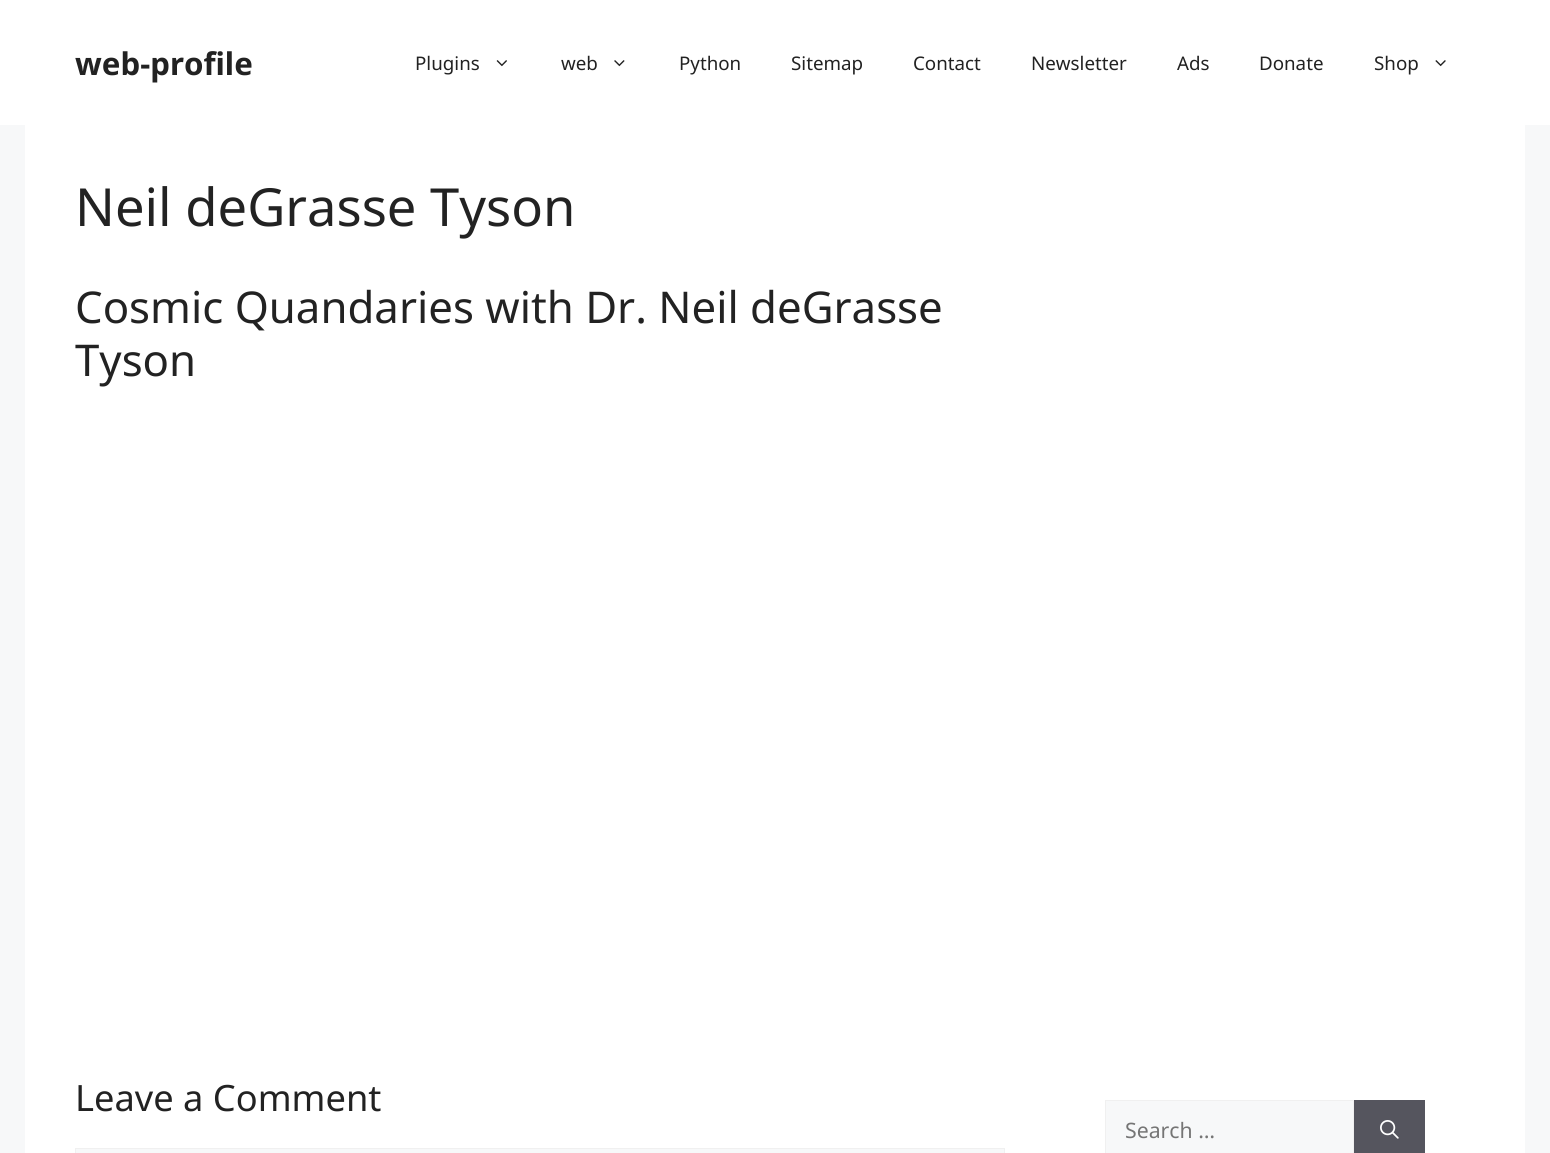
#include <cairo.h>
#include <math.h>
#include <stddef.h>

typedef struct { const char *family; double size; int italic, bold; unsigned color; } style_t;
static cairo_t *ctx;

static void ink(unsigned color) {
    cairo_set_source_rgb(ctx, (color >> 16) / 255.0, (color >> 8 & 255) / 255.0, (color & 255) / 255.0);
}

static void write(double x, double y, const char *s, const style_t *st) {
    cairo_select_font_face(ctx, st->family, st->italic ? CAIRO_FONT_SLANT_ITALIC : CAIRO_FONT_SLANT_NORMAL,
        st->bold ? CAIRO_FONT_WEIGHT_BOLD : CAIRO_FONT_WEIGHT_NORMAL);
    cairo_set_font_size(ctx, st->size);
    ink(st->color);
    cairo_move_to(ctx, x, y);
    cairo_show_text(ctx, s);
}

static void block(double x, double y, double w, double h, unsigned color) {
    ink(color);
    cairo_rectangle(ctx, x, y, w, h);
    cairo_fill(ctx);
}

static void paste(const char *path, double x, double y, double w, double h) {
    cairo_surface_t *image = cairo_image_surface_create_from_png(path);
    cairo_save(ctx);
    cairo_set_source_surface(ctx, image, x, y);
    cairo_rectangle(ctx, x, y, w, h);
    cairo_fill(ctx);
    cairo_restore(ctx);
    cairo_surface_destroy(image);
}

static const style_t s1 = {"Noto Sans", 31.25, 0, 1, 0x222222};
static const style_t s2 = {"Noto Sans", 18.75, 0, 0, 0x222222};
static const style_t s3 = {"Noto Sans", 52.5, 0, 0, 0x222222};
static const style_t s4 = {"Noto Sans", 43.75, 0, 0, 0x222222};
static const style_t s5 = {"Noto Sans", 36.25, 0, 0, 0x222222};
static const style_t s6 = {"Noto Sans", 21.25, 0, 0, 0x757575};

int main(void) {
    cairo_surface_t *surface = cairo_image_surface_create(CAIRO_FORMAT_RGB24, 1550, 1153);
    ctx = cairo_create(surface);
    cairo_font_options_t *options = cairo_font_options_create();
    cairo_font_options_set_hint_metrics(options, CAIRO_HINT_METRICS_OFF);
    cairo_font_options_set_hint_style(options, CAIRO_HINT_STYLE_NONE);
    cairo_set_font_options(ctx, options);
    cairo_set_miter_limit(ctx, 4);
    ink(0xf7f8f9);
    cairo_paint(ctx);
    block(0, 0, 1550, 125, 0xffffff);
    write(75, 75, "web-profile", &s1);
    write(415, 70, "Plugins", &s2);
    paste("pic1.png", 496, 60, 11, 7);
    write(561, 70, "web", &s2);
    paste("pic2.png", 614, 60, 11, 7);
    write(679, 70, "Python", &s2);
    write(791, 70, "Sitemap", &s2);
    write(913, 70, "Contact", &s2);
    write(1031, 70, "Newsletter", &s2);
    write(1177, 70, "Ads", &s2);
    write(1259, 70, "Donate", &s2);
    write(1374, 70, "Shop", &s2);
    paste("pic3.png", 1435, 60, 11, 7);
    block(25, 125, 1500, 1028, 0xffffff);
    write(75, 226, "Neil deGrasse Tyson", &s3);
    write(75, 323, "Cosmic Quandaries with Dr. Neil deGrasse", &s4);
    write(75, 376, "Tyson", &s4);
    write(75, 1111, "Leave a Comment", &s5);
    ink(0xf7f8f9);
    cairo_rectangle(ctx, 75.5, 1148.5, 929, 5);
    cairo_fill_preserve(ctx);
    ink(0xf0f0f0);
    cairo_set_line_width(ctx, 1);
    cairo_stroke(ctx);
    ink(0xf7f8f9);
    cairo_rectangle(ctx, 1105.5, 1100.5, 248, 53);
    cairo_fill_preserve(ctx);
    ink(0xf0f0f0);
    cairo_stroke(ctx);
    write(1125, 1138, "Search …", &s6);
    block(1354, 1100, 71, 53, 0x55555e);
    paste("pic4.png", 1380, 1120, 19, 19);
    cairo_surface_write_to_png(surface, "screenshot.png");
    cairo_font_options_destroy(options);
    cairo_destroy(ctx);
    cairo_surface_destroy(surface);
    return 0;
}
